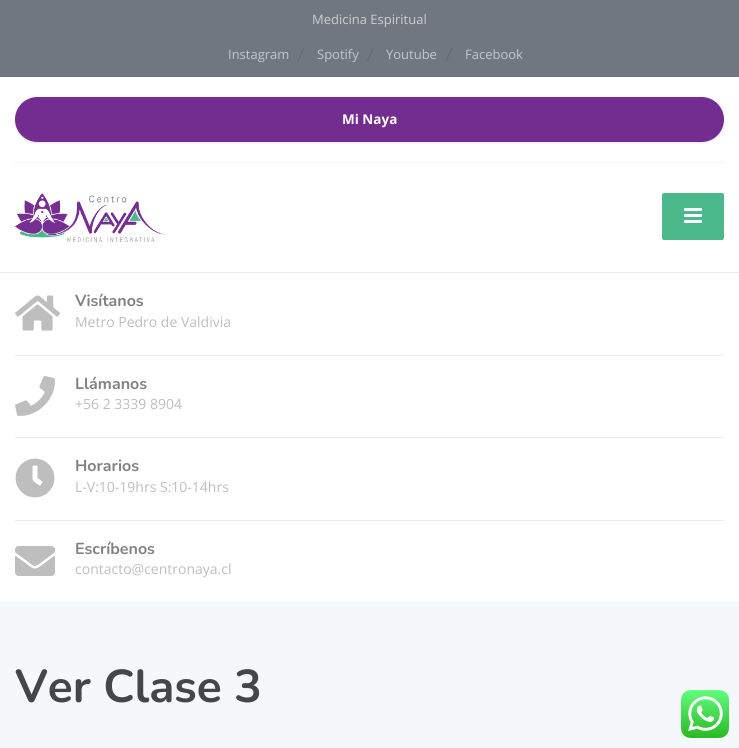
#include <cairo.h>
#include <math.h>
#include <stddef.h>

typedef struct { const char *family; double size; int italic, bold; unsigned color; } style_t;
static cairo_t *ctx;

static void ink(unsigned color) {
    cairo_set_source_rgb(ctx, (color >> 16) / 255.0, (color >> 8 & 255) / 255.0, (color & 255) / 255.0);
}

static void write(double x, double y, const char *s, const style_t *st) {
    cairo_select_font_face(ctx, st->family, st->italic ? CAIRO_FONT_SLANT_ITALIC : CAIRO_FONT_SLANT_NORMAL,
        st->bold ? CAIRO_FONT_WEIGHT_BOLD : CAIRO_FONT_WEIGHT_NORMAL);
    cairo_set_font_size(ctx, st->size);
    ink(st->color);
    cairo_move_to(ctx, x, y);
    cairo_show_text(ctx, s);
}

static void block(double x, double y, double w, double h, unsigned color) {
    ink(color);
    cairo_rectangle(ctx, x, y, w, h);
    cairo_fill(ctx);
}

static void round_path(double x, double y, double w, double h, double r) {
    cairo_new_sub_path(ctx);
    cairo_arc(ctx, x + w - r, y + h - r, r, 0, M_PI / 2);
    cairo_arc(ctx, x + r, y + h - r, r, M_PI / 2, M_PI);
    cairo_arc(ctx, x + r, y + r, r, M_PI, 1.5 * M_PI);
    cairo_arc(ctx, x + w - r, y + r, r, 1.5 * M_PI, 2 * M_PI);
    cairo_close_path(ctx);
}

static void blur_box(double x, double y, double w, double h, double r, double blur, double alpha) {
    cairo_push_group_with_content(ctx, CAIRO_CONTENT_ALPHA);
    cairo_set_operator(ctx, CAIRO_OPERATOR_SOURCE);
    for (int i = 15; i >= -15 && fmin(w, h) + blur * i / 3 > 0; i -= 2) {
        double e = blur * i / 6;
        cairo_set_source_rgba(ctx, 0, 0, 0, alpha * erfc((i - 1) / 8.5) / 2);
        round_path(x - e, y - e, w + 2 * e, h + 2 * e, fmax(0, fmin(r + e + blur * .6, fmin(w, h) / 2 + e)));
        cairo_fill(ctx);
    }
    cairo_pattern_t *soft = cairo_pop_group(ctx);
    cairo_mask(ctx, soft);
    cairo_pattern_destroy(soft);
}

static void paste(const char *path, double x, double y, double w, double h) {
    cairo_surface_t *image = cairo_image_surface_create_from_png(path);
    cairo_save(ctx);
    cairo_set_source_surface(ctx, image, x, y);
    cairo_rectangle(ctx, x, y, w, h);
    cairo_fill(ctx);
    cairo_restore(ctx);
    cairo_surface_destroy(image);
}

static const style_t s1 = {"Open Sans", 13, 0, 0, 0xcecece};
static const style_t s2 = {"Open Sans", 13, 0, 0, 0xc1c7ce};
static const style_t s3 = {"Open Sans", 13.5, 0, 1, 0xffffff};
static const style_t s4 = {"Nunito", 16, 0, 1, 0x828282};
static const style_t s5 = {"Open Sans", 14, 0, 0, 0xbebebe};
static const style_t s6 = {"Nunito", 46, 0, 1, 0x464646};

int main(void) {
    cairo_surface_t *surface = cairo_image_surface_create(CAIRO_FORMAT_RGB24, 739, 748);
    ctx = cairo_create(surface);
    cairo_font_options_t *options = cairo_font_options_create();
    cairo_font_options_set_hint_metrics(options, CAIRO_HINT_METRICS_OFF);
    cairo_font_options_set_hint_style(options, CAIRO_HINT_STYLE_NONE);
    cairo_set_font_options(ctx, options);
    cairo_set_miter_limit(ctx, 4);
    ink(0xffffff);
    cairo_paint(ctx);
    block(0, 0, 739, 77, 0x707780);
    write(312, 24, "Medicina Espiritual", &s1);
    write(228, 59, "Instagram", &s2);
    ink(0x61666d);
    cairo_new_path(ctx);
    cairo_move_to(ctx, 303.5, 48);
    cairo_line_to(ctx, 304.5, 48);
    cairo_line_to(ctx, 298.5, 61);
    cairo_line_to(ctx, 297.5, 61);
    cairo_close_path(ctx);
    cairo_fill(ctx);
    write(317, 59, "Spotify", &s2);
    ink(0x61666d);
    cairo_new_path(ctx);
    cairo_move_to(ctx, 373, 48);
    cairo_line_to(ctx, 374, 48);
    cairo_line_to(ctx, 368, 61);
    cairo_line_to(ctx, 367, 61);
    cairo_close_path(ctx);
    cairo_fill(ctx);
    write(386, 59, "Youtube", &s2);
    ink(0x61666d);
    cairo_new_path(ctx);
    cairo_move_to(ctx, 451.5, 48);
    cairo_line_to(ctx, 452.5, 48);
    cairo_line_to(ctx, 446.5, 61);
    cairo_line_to(ctx, 445.5, 61);
    cairo_close_path(ctx);
    cairo_fill(ctx);
    write(465, 59, "Facebook", &s2);
    block(0, 272, 739, 1, 0xececec);
    block(15, 162, 709, 1, 0xf3f3f3);
    ink(0x000000);
    blur_box(15, 98, 709, 45, 22.5, 1, 0.1);
    ink(0x732d91);
    round_path(15, 97, 709, 45, 22.5);
    cairo_fill(ctx);
    write(342, 124, "Mi Naya", &s3);
    paste("pic1.png", 15, 193, 150, 49);
    ink(0x4bb98c);
    round_path(662, 193, 62, 47, 2);
    cairo_fill(ctx);
    ink(0xffffff);
    round_path(684, 208, 18, 3, 1);
    cairo_fill(ctx);
    round_path(684, 214, 18, 3, 1);
    cairo_fill(ctx);
    round_path(684, 220, 18, 3, 1);
    cairo_fill(ctx);
    block(15, 355, 709, 1, 0xebebeb);
    paste("pic2.png", 15, 295, 45, 36);
    write(75, 306, "Visítanos", &s4);
    write(75, 327, "Metro Pedro de Valdivia", &s5);
    block(15, 437, 709, 1, 0xebebeb);
    paste("pic3.png", 15, 376, 40, 40);
    write(75, 389, "Llámanos", &s4);
    write(75, 409, "+56 2 3339 8904", &s5);
    block(15, 520, 709, 1, 0xebebeb);
    paste("pic4.png", 15, 458, 40, 40);
    write(75, 471, "Horarios", &s4);
    write(75, 492, "L-V:10-19hrs S:10-14hrs", &s5);
    paste("pic5.png", 15, 546, 40, 30);
    write(75, 554, "Escríbenos", &s4);
    write(75, 574, "contacto@centronaya.cl", &s5);
    block(0, 602, 739, 146, 0xf5f8fb);
    write(15, 702, "Ver Clase 3", &s6);
    paste("pic6.png", 681, 690, 48, 48);
    cairo_surface_write_to_png(surface, "screenshot.png");
    cairo_font_options_destroy(options);
    cairo_destroy(ctx);
    cairo_surface_destroy(surface);
    return 0;
}
